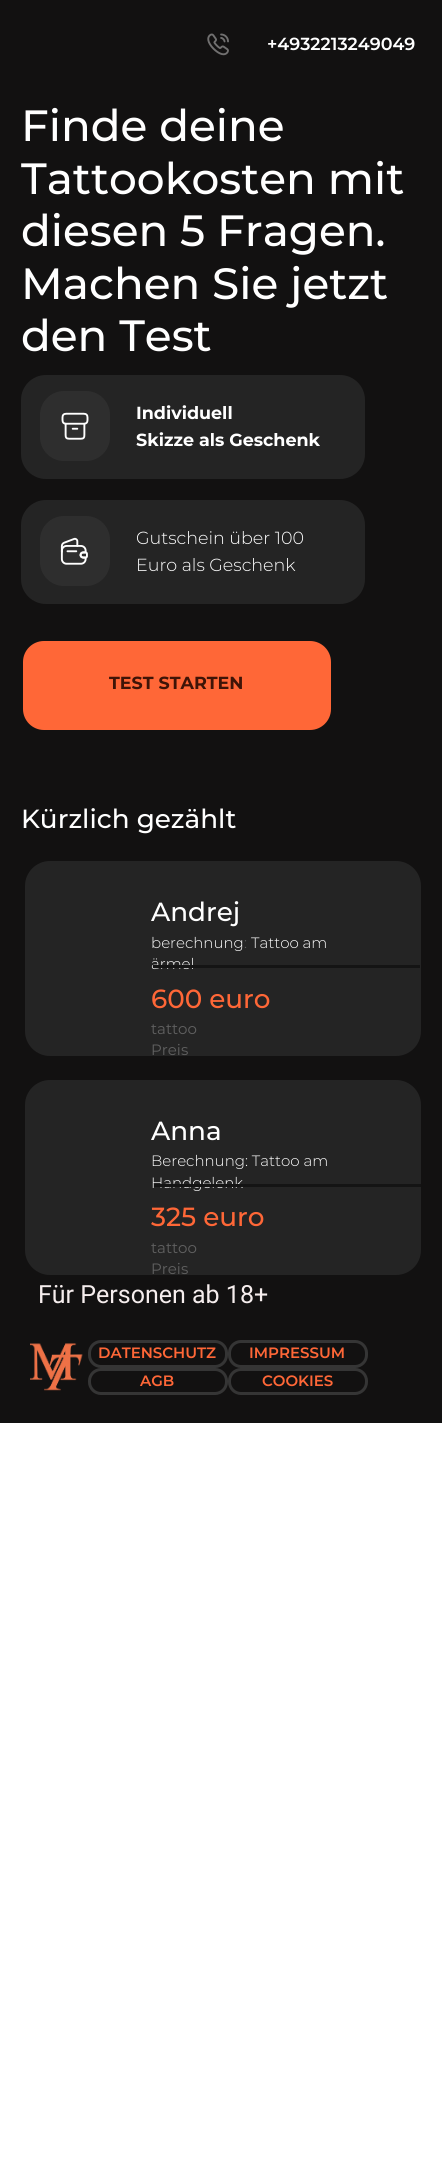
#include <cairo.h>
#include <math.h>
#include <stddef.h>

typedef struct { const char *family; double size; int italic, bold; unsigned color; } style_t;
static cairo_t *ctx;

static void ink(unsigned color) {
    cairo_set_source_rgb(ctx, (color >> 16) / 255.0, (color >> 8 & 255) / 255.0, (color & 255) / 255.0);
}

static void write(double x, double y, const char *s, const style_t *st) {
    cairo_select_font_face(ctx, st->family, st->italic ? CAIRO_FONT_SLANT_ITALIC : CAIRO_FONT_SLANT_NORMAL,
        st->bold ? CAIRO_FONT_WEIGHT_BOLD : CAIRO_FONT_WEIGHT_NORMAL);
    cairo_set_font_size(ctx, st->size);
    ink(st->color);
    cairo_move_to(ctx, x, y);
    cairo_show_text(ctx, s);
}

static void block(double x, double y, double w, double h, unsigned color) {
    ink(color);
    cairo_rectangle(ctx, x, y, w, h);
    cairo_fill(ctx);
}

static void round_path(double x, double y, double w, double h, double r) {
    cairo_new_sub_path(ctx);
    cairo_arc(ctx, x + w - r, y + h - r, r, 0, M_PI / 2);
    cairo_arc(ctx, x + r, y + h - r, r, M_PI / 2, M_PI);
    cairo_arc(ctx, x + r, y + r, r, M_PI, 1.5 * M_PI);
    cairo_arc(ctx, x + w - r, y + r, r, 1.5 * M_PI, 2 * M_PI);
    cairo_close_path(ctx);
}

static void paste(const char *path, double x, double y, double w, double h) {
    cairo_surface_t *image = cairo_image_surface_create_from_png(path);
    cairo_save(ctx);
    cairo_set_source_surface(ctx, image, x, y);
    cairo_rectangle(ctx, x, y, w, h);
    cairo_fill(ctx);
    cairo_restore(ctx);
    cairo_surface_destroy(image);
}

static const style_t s1 = {"Montserrat SemiBold", 17.5, 0, 0, 0xffffff};
static const style_t s2 = {"Montserrat Medium", 43.75, 0, 0, 0xffffff};
static const style_t s3 = {"Montserrat", 17.5, 0, 1, 0xffffff};
static const style_t s4 = {"Montserrat Light", 17.5, 0, 0, 0xffffff};
static const style_t s5 = {"Montserrat", 17.5, 0, 1, 0x3f1407};
static const style_t s6 = {"Montserrat Medium", 26.25, 0, 0, 0xffffff};
static const style_t s7 = {"Montserrat Light", 15, 0, 0, 0xffffff};
static const style_t s8 = {"Montserrat Light", 15, 0, 0, 0x606060};
static const style_t s9 = {"Montserrat Medium", 26.25, 0, 0, 0xff6737};
static const style_t s10 = {"Montserrat", 15, 0, 0, 0x606060};
static const style_t s11 = {"Roboto", 25, 0, 0, 0xf5eded};
static const style_t s12 = {"Montserrat SemiBold", 15, 0, 0, 0xff6737};

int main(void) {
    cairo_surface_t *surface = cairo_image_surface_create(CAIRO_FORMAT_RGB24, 442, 2178);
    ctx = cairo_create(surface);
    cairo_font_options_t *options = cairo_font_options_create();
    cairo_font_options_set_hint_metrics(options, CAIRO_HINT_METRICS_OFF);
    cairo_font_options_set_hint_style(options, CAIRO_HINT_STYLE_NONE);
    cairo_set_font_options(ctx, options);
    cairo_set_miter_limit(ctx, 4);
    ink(0xffffff);
    cairo_paint(ctx);
    block(0, 0, 442, 1423, 0x121111);
    paste("pic1.png", 207, 33, 22, 23);
    write(267, 50, "+4932213249049", &s1);
    write(21, 141, "Finde deine", &s2);
    write(21, 194, "Tattookosten mit", &s2);
    write(21, 246, "diesen 5 Fragen.", &s2);
    write(21, 299, "Machen Sie jetzt", &s2);
    write(21, 351, "den Test", &s2);
    ink(0x242424);
    round_path(21, 375, 344, 104, 25);
    cairo_fill(ctx);
    ink(0x2e2e2e);
    round_path(40, 391, 70, 70, 24);
    cairo_fill(ctx);
    paste("pic2.png", 61, 412, 28, 28);
    write(136, 419, "Individuell", &s3);
    write(136, 446, "Skizze als Geschenk", &s3);
    ink(0x242424);
    round_path(21, 500, 344, 104, 25);
    cairo_fill(ctx);
    ink(0x2e2e2e);
    round_path(40, 516, 70, 70, 24);
    cairo_fill(ctx);
    paste("pic3.png", 60, 537, 28, 28);
    write(136, 544, "Gutschein über 100", &s4);
    write(136, 571, "Euro als Geschenk", &s4);
    ink(0xff6737);
    round_path(23, 641, 308, 89, 21);
    cairo_fill(ctx);
    write(109, 689, "TEST STARTEN", &s5);
    write(21, 828, "Kürzlich gezählt", &s6);
    ink(0x242424);
    round_path(25, 861, 396, 195, 25);
    cairo_fill(ctx);
    write(151, 921, "Andrej", &s6);
    write(151, 948, "berechnung", &s7);
    write(244, 948, ":", &s8);
    write(251, 948, "Tattoo am", &s7);
    write(151, 969, "ärmel", &s7);
    block(153, 965, 267, 3, 0x141414);
    write(151, 1008, "600 euro", &s9);
    write(151, 1034, "tattoo", &s10);
    write(151, 1055, "Preis", &s10);
    ink(0x242424);
    round_path(25, 1080, 396, 195, 25);
    cairo_fill(ctx);
    write(151, 1140, "Anna", &s6);
    write(151, 1166, "Berechnung: Tattoo am", &s7);
    write(151, 1188, "Handgelenk", &s7);
    block(154, 1184, 267, 3, 0x141414);
    write(151, 1226, "325 euro", &s9);
    write(151, 1253, "tattoo", &s10);
    write(151, 1274, "Preis", &s10);
    write(38, 1303, "Für Personen ab 18+", &s11);
    paste("pic4.png", 30, 1343, 53, 48);
    round_path(89.5, 1341.5, 137, 25, 11.5);
    ink(0x353535);
    cairo_set_line_width(ctx, 3);
    cairo_stroke(ctx);
    write(98, 1358, "DATENSCHUTZ", &s12);
    round_path(229.5, 1341.5, 137, 25, 11.5);
    ink(0x353535);
    cairo_stroke(ctx);
    write(249, 1358, "IMPRESSUM", &s12);
    round_path(89.5, 1369.5, 137, 24, 11.5);
    ink(0x353535);
    cairo_stroke(ctx);
    write(140, 1386, "AGB", &s12);
    round_path(229.5, 1369.5, 137, 24, 11.5);
    ink(0x353535);
    cairo_stroke(ctx);
    write(262, 1386, "COOKIES", &s12);
    cairo_surface_write_to_png(surface, "screenshot.png");
    cairo_font_options_destroy(options);
    cairo_destroy(ctx);
    cairo_surface_destroy(surface);
    return 0;
}
